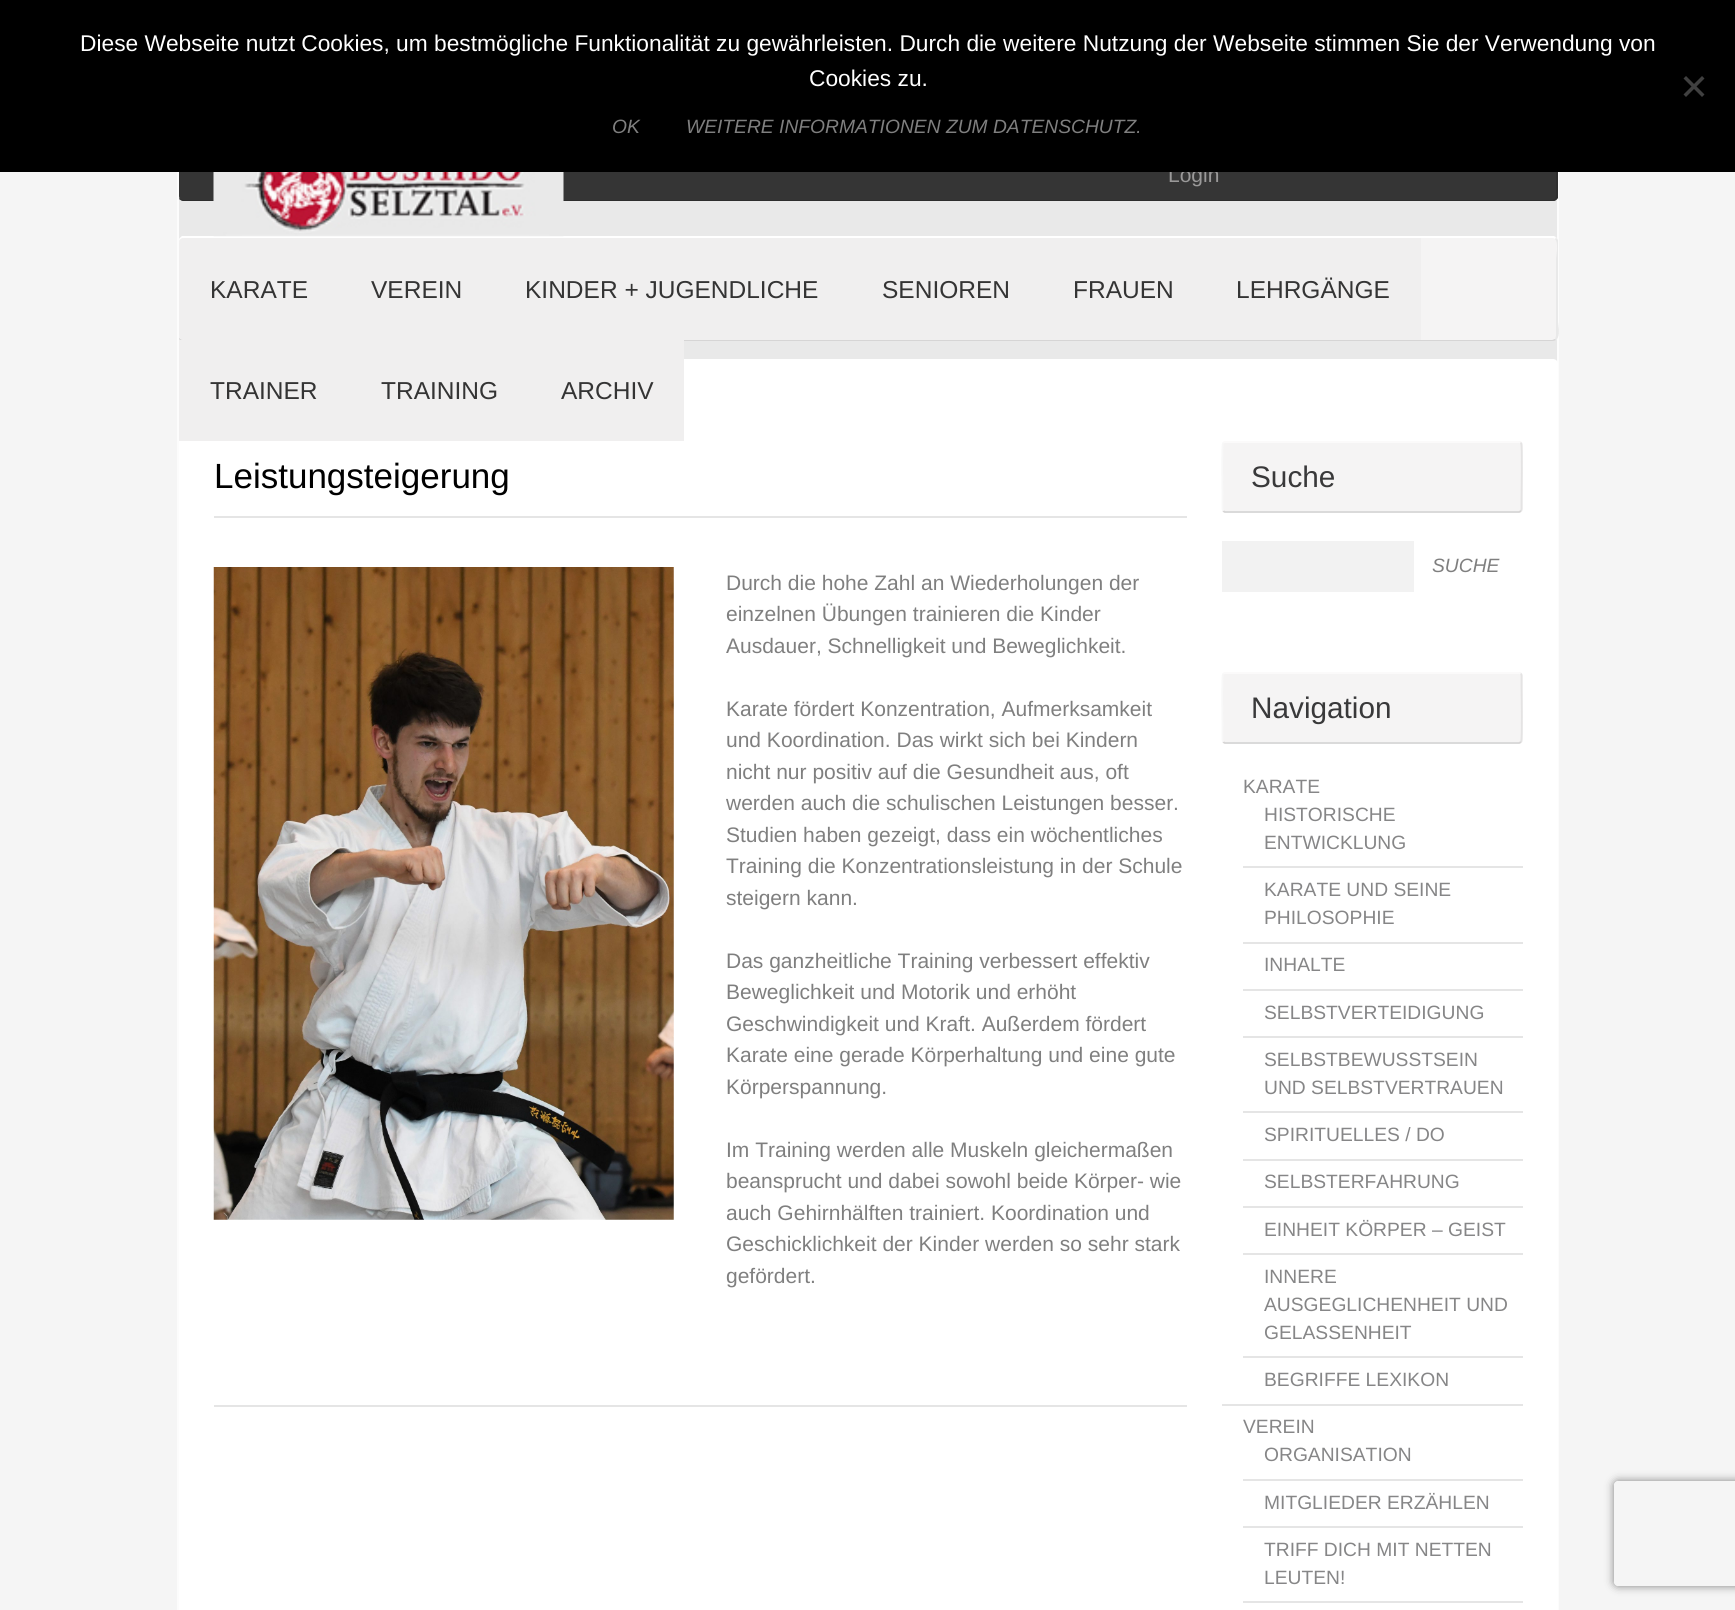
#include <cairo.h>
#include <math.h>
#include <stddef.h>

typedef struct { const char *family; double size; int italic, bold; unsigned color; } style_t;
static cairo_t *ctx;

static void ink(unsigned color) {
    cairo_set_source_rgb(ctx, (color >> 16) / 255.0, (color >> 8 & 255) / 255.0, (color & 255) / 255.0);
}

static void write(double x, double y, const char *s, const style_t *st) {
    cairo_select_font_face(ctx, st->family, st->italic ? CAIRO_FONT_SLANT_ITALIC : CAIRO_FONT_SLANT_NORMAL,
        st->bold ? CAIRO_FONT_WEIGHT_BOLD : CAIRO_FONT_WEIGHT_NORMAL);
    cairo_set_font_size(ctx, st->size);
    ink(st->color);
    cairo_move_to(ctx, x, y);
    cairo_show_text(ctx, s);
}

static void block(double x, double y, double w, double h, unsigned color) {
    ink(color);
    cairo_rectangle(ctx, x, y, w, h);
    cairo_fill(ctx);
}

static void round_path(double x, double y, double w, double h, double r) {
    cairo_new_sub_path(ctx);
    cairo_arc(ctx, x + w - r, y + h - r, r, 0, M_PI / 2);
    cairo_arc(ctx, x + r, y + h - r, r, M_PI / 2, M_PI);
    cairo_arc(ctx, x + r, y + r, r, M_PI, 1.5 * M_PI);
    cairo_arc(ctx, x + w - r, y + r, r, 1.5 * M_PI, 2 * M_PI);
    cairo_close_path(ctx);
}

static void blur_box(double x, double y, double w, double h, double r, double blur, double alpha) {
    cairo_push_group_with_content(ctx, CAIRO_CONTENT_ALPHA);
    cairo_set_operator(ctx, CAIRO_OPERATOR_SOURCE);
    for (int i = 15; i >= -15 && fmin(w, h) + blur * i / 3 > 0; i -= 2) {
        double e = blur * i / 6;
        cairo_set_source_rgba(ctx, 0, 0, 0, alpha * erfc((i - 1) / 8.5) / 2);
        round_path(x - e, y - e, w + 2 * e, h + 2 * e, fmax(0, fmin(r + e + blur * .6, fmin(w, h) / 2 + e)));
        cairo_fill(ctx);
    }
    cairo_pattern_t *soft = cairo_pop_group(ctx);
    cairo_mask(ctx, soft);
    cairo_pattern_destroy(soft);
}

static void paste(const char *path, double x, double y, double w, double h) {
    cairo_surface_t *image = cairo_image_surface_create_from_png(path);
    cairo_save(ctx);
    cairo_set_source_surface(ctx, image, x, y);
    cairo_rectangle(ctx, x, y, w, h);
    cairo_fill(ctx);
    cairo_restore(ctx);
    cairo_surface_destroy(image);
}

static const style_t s1 = {"Liberation Sans", 21, 0, 0, 0x9a9999};
static const style_t s2 = {"Liberation Sans", 22.75, 0, 0, 0xffffff};
static const style_t s3 = {"Liberation Sans", 19.25, 1, 0, 0x7f7f7f};
static const style_t s4 = {"Liberation Sans", 24.5, 0, 0, 0x343434};
static const style_t s5 = {"Liberation Sans", 35, 0, 0, 0x000000};
static const style_t s6 = {"Liberation Sans", 21, 0, 0, 0x7f7f7f};
static const style_t s7 = {"Liberation Sans", 29.75, 0, 0, 0x39393a};
static const style_t s8 = {"Liberation Sans", 19.25, 0, 0, 0x868687};

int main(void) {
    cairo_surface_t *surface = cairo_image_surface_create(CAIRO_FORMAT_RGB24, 1735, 1610);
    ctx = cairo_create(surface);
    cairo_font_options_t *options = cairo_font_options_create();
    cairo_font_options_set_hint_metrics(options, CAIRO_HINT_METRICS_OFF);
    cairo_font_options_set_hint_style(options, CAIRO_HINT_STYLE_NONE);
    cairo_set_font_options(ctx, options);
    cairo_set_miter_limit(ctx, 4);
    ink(0xf5f5f5);
    cairo_paint(ctx);
    block(179, 196, 1378, 165, 0xe9e9e9);
    cairo_rectangle(ctx, 178, 59, 1380, 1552);
    ink(0xfcfcfc);
    cairo_stroke(ctx);
    ink(0x353535);
    round_path(179, 93, 1379, 108, 5);
    cairo_fill(ctx);
    ink(0x2f2f2f);
    cairo_new_path(ctx);
    cairo_move_to(ctx, 1555, 199);
    cairo_line_to(ctx, 1556, 196);
    cairo_line_to(ctx, 1556, 97);
    cairo_line_to(ctx, 1555, 94);
    cairo_line_to(ctx, 1552, 93);
    cairo_curve_to(ctx, 1553, 93, 1557, 94, 1558, 96);
    cairo_line_to(ctx, 1558, 198);
    cairo_line_to(ctx, 1556, 200);
    cairo_close_path(ctx);
    cairo_fill(ctx);
    write(1168, 182, "Login", &s1);
    block(0, 0, 1735, 172, 0x000000);
    write(80, 51, "Diese Webseite nutzt Cookies, um bestmögliche Funktionalität zu gewährleisten. Durch die weitere Nutzung der Webseite stimmen Sie der Verwendung von", &s2);
    write(809, 86, "Cookies zu.", &s2);
    ink(0x404040);
    cairo_new_path(ctx);
    cairo_move_to(ctx, 1702, 76);
    cairo_line_to(ctx, 1704.5, 78.5);
    cairo_line_to(ctx, 1686, 97);
    cairo_line_to(ctx, 1683.5, 94.5);
    cairo_close_path(ctx);
    cairo_fill(ctx);
    cairo_new_path(ctx);
    cairo_move_to(ctx, 1683.5, 78.5);
    cairo_line_to(ctx, 1686, 76);
    cairo_line_to(ctx, 1704.5, 94.5);
    cairo_line_to(ctx, 1702, 97);
    cairo_close_path(ctx);
    cairo_fill(ctx);
    write(612, 133, "OK", &s3);
    write(686, 133, "WEITERE INFORMATIONEN ZUM DATENSCHUTZ.", &s3);
    ink(0x2e2e2e);
    cairo_new_path(ctx);
    cairo_move_to(ctx, 179, 199);
    cairo_curve_to(ctx, 180, 200, 182, 201, 184, 201);
    cairo_line_to(ctx, 1552, 201);
    cairo_curve_to(ctx, 1553, 201, 1555, 201, 1556, 200);
    cairo_line_to(ctx, 1555, 199);
    cairo_curve_to(ctx, 1554, 199, 1553, 200, 1552, 200);
    cairo_line_to(ctx, 184, 200);
    cairo_curve_to(ctx, 182, 200, 180, 199, 179, 198);
    cairo_close_path(ctx);
    cairo_fill(ctx);
    ink(0xf5f4f4);
    round_path(179, 236, 1379, 105, 5);
    cairo_fill(ctx);
    ink(0xffffff);
    cairo_new_path(ctx);
    cairo_move_to(ctx, 1555, 239);
    cairo_curve_to(ctx, 1554, 238, 1553, 238, 1552, 238);
    cairo_line_to(ctx, 184, 238);
    cairo_curve_to(ctx, 182, 238, 180, 239, 179, 240);
    cairo_line_to(ctx, 179, 239);
    cairo_curve_to(ctx, 180, 238, 181, 237, 182, 236);
    cairo_line_to(ctx, 1554, 236);
    cairo_line_to(ctx, 1556, 238);
    cairo_close_path(ctx);
    cairo_fill(ctx);
    paste("pic1.png", 213, 172, 351, 65);
    ink(0xe9e9e9);
    cairo_new_path(ctx);
    cairo_move_to(ctx, 1555, 339);
    cairo_line_to(ctx, 1556, 336);
    cairo_line_to(ctx, 1556, 258);
    cairo_curve_to(ctx, 1556, 257, 1559, 243, 1555, 239);
    cairo_line_to(ctx, 1556, 238);
    cairo_line_to(ctx, 1558, 240);
    cairo_line_to(ctx, 1558, 322);
    cairo_curve_to(ctx, 1558, 325, 1561, 336, 1556, 340);
    cairo_close_path(ctx);
    cairo_fill(ctx);
    ink(0xd6d5d5);
    cairo_new_path(ctx);
    cairo_move_to(ctx, 1556, 340);
    cairo_curve_to(ctx, 1555, 341, 1553, 341, 1552, 341);
    cairo_line_to(ctx, 184, 341);
    cairo_curve_to(ctx, 182, 341, 180, 340, 179, 339);
    cairo_line_to(ctx, 179, 338);
    cairo_curve_to(ctx, 180, 339, 182, 340, 184, 340);
    cairo_line_to(ctx, 1552, 340);
    cairo_curve_to(ctx, 1553, 340, 1554, 339, 1555, 339);
    cairo_close_path(ctx);
    cairo_fill(ctx);
    ink(0xf0efef);
    cairo_new_path(ctx);
    cairo_move_to(ctx, 184, 238);
    cairo_line_to(ctx, 340, 238);
    cairo_line_to(ctx, 340, 340);
    cairo_line_to(ctx, 184, 340);
    cairo_curve_to(ctx, 181, 340, 179, 338, 179, 335);
    cairo_line_to(ctx, 179, 243);
    cairo_curve_to(ctx, 179, 240, 181, 238, 184, 238);
    cairo_close_path(ctx);
    cairo_fill(ctx);
    write(210, 298, "KARATE", &s4);
    block(340, 238, 1081, 102, 0xf0efef);
    write(371, 298, "VEREIN", &s4);
    write(525, 298, "KINDER + JUGENDLICHE", &s4);
    write(882, 298, "SENIOREN", &s4);
    write(1073, 298, "FRAUEN", &s4);
    write(1236, 298, "LEHRGÄNGE", &s4);
    ink(0xffffff);
    round_path(180, 360, 1377, 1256, 4);
    cairo_fill_preserve(ctx);
    cairo_stroke(ctx);
    block(179, 340, 505, 101, 0xf0efef);
    write(210, 399, "TRAINER", &s4);
    write(381, 399, "TRAINING", &s4);
    write(561, 399, "ARCHIV", &s4);
    block(214, 1405, 973, 2, 0xe5e5e5);
    block(214, 516, 973, 2, 0xe5e5e5);
    write(214, 488, "Leistungsteigerung", &s5);
    paste("pic2.png", 213, 567, 461, 653);
    write(726, 590, "Durch die hohe Zahl an Wiederholungen der", &s6);
    write(726, 621, "einzelnen Übungen trainieren die Kinder", &s6);
    write(726, 653, "Ausdauer, Schnelligkeit und Beweglichkeit.", &s6);
    write(726, 716, "Karate fördert Konzentration, Aufmerksamkeit", &s6);
    write(726, 747, "und Koordination. Das wirkt sich bei Kindern", &s6);
    write(726, 779, "nicht nur positiv auf die Gesundheit aus, oft", &s6);
    write(726, 810, "werden auch die schulischen Leistungen besser.", &s6);
    write(726, 842, "Studien haben gezeigt, dass ein wöchentliches", &s6);
    write(726, 873, "Training die Konzentrationsleistung in der Schule", &s6);
    write(726, 905, "steigern kann.", &s6);
    write(726, 968, "Das ganzheitliche Training verbessert effektiv", &s6);
    write(726, 999, "Beweglichkeit und Motorik und erhöht", &s6);
    write(726, 1031, "Geschwindigkeit und Kraft. Außerdem fördert", &s6);
    write(726, 1062, "Karate eine gerade Körperhaltung und eine gute", &s6);
    write(726, 1094, "Körperspannung.", &s6);
    write(726, 1157, "Im Training werden alle Muskeln gleichermaßen", &s6);
    write(726, 1188, "beansprucht und dabei sowohl beide Körper- wie", &s6);
    write(726, 1220, "auch Gehirnhälften trainiert. Koordination und", &s6);
    write(726, 1251, "Geschicklichkeit der Kinder werden so sehr stark", &s6);
    write(726, 1283, "gefördert.", &s6);
    ink(0xf5f4f4);
    round_path(1222, 441, 301, 72, 4);
    cairo_fill(ctx);
    cairo_new_path(ctx);
    cairo_move_to(ctx, 1223, 442.5);
    cairo_line_to(ctx, 1225, 442);
    cairo_line_to(ctx, 1519, 442);
    cairo_line_to(ctx, 1521, 442.5);
    ink(0xfbfafa);
    cairo_set_line_width(ctx, 1.8);
    cairo_stroke(ctx);
    cairo_new_path(ctx);
    cairo_move_to(ctx, 1521, 442.5);
    cairo_line_to(ctx, 1521, 443);
    cairo_curve_to(ctx, 1522.5, 445, 1521.5, 492, 1521.5, 498.5);
    cairo_line_to(ctx, 1521.5, 509);
    cairo_line_to(ctx, 1521, 511);
    ink(0xe4e3e3);
    cairo_stroke(ctx);
    cairo_new_path(ctx);
    cairo_move_to(ctx, 1521, 511);
    cairo_line_to(ctx, 1519, 512);
    cairo_line_to(ctx, 1225, 512);
    cairo_line_to(ctx, 1223, 511);
    ink(0xd6d5d5);
    cairo_stroke(ctx);
    cairo_new_path(ctx);
    cairo_move_to(ctx, 1223, 511);
    cairo_line_to(ctx, 1222.5, 509);
    cairo_line_to(ctx, 1222.5, 498.5);
    cairo_curve_to(ctx, 1222.5, 492, 1221.5, 445, 1223, 443);
    cairo_line_to(ctx, 1223, 442.5);
    ink(0xf8f8f8);
    cairo_stroke(ctx);
    write(1251, 487, "Suche", &s7);
    block(1222, 541, 192, 51, 0xf2f2f2);
    write(1432, 572, "SUCHE", &s3);
    ink(0xf5f4f4);
    round_path(1222, 672, 301, 72, 4);
    cairo_fill(ctx);
    cairo_new_path(ctx);
    cairo_move_to(ctx, 1223, 673.5);
    cairo_line_to(ctx, 1225, 673);
    cairo_line_to(ctx, 1519, 673);
    cairo_line_to(ctx, 1521, 673.5);
    ink(0xfbfafa);
    cairo_stroke(ctx);
    cairo_new_path(ctx);
    cairo_move_to(ctx, 1521, 673.5);
    cairo_line_to(ctx, 1521.5, 675.5);
    cairo_line_to(ctx, 1521.5, 686.5);
    cairo_curve_to(ctx, 1521.5, 692.5, 1522.5, 740, 1521, 742);
    ink(0xe4e3e3);
    cairo_stroke(ctx);
    cairo_new_path(ctx);
    cairo_move_to(ctx, 1521, 742);
    cairo_line_to(ctx, 1519, 743);
    cairo_line_to(ctx, 1225, 743);
    cairo_line_to(ctx, 1223, 742);
    ink(0xd6d5d5);
    cairo_stroke(ctx);
    cairo_new_path(ctx);
    cairo_move_to(ctx, 1223, 742);
    cairo_line_to(ctx, 1222.5, 740);
    cairo_line_to(ctx, 1222.5, 729.5);
    cairo_curve_to(ctx, 1222.5, 723, 1221.5, 676, 1223, 674);
    cairo_line_to(ctx, 1223, 673.5);
    ink(0xf8f8f8);
    cairo_stroke(ctx);
    write(1251, 718, "Navigation", &s7);
    write(1243, 793, "KARATE", &s8);
    write(1264, 821, "HISTORISCHE", &s8);
    write(1264, 849, "ENTWICKLUNG", &s8);
    block(1243, 866, 280, 2, 0xe5e5e5);
    write(1264, 896, "KARATE UND SEINE", &s8);
    write(1264, 924, "PHILOSOPHIE", &s8);
    block(1243, 942, 280, 2, 0xe5e5e5);
    write(1264, 971, "INHALTE", &s8);
    block(1243, 989, 280, 2, 0xe5e5e5);
    write(1264, 1019, "SELBSTVERTEIDIGUNG", &s8);
    block(1243, 1036, 280, 2, 0xe5e5e5);
    write(1264, 1066, "SELBSTBEWUSSTSEIN", &s8);
    write(1264, 1094, "UND SELBSTVERTRAUEN", &s8);
    block(1243, 1111, 280, 2, 0xe5e5e5);
    write(1264, 1141, "SPIRITUELLES / DO", &s8);
    block(1243, 1159, 280, 2, 0xe5e5e5);
    write(1264, 1188, "SELBSTERFAHRUNG", &s8);
    block(1243, 1206, 280, 2, 0xe5e5e5);
    write(1264, 1236, "EINHEIT KÖRPER – GEIST", &s8);
    block(1243, 1253, 280, 2, 0xe5e5e5);
    write(1264, 1283, "INNERE", &s8);
    write(1264, 1311, "AUSGEGLICHENHEIT UND", &s8);
    write(1264, 1339, "GELASSENHEIT", &s8);
    block(1243, 1356, 280, 2, 0xe5e5e5);
    write(1264, 1386, "BEGRIFFE LEXIKON", &s8);
    block(1222, 1404, 301, 2, 0xe5e5e5);
    write(1243, 1433, "VEREIN", &s8);
    write(1264, 1461, "ORGANISATION", &s8);
    block(1243, 1479, 280, 2, 0xe5e5e5);
    write(1264, 1509, "MITGLIEDER ERZÄHLEN", &s8);
    block(1243, 1526, 280, 2, 0xe5e5e5);
    write(1264, 1556, "TRIFF DICH MIT NETTEN", &s8);
    write(1264, 1584, "LEUTEN!", &s8);
    block(1243, 1601, 280, 2, 0xe5e5e5);
    cairo_save(ctx);
    cairo_set_fill_rule(ctx, CAIRO_FILL_RULE_EVEN_ODD);
    cairo_new_path(ctx);
    cairo_move_to(ctx, 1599, 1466);
    cairo_line_to(ctx, 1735, 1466);
    cairo_line_to(ctx, 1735, 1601);
    cairo_line_to(ctx, 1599, 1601);
    cairo_close_path(ctx);
    cairo_move_to(ctx, 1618, 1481);
    cairo_line_to(ctx, 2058, 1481);
    cairo_curve_to(ctx, 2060, 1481, 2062, 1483, 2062, 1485);
    cairo_line_to(ctx, 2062, 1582);
    cairo_curve_to(ctx, 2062, 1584, 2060, 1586, 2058, 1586);
    cairo_line_to(ctx, 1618, 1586);
    cairo_curve_to(ctx, 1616, 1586, 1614, 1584, 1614, 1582);
    cairo_line_to(ctx, 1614, 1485);
    cairo_curve_to(ctx, 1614, 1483, 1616, 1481, 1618, 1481);
    cairo_close_path(ctx);
    cairo_clip(ctx);
    ink(0x808080);
    blur_box(1614, 1481, 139, 105, 4, 4.5, 1);
    cairo_restore(ctx);
    cairo_surface_write_to_png(surface, "screenshot.png");
    cairo_font_options_destroy(options);
    cairo_destroy(ctx);
    cairo_surface_destroy(surface);
    return 0;
}
